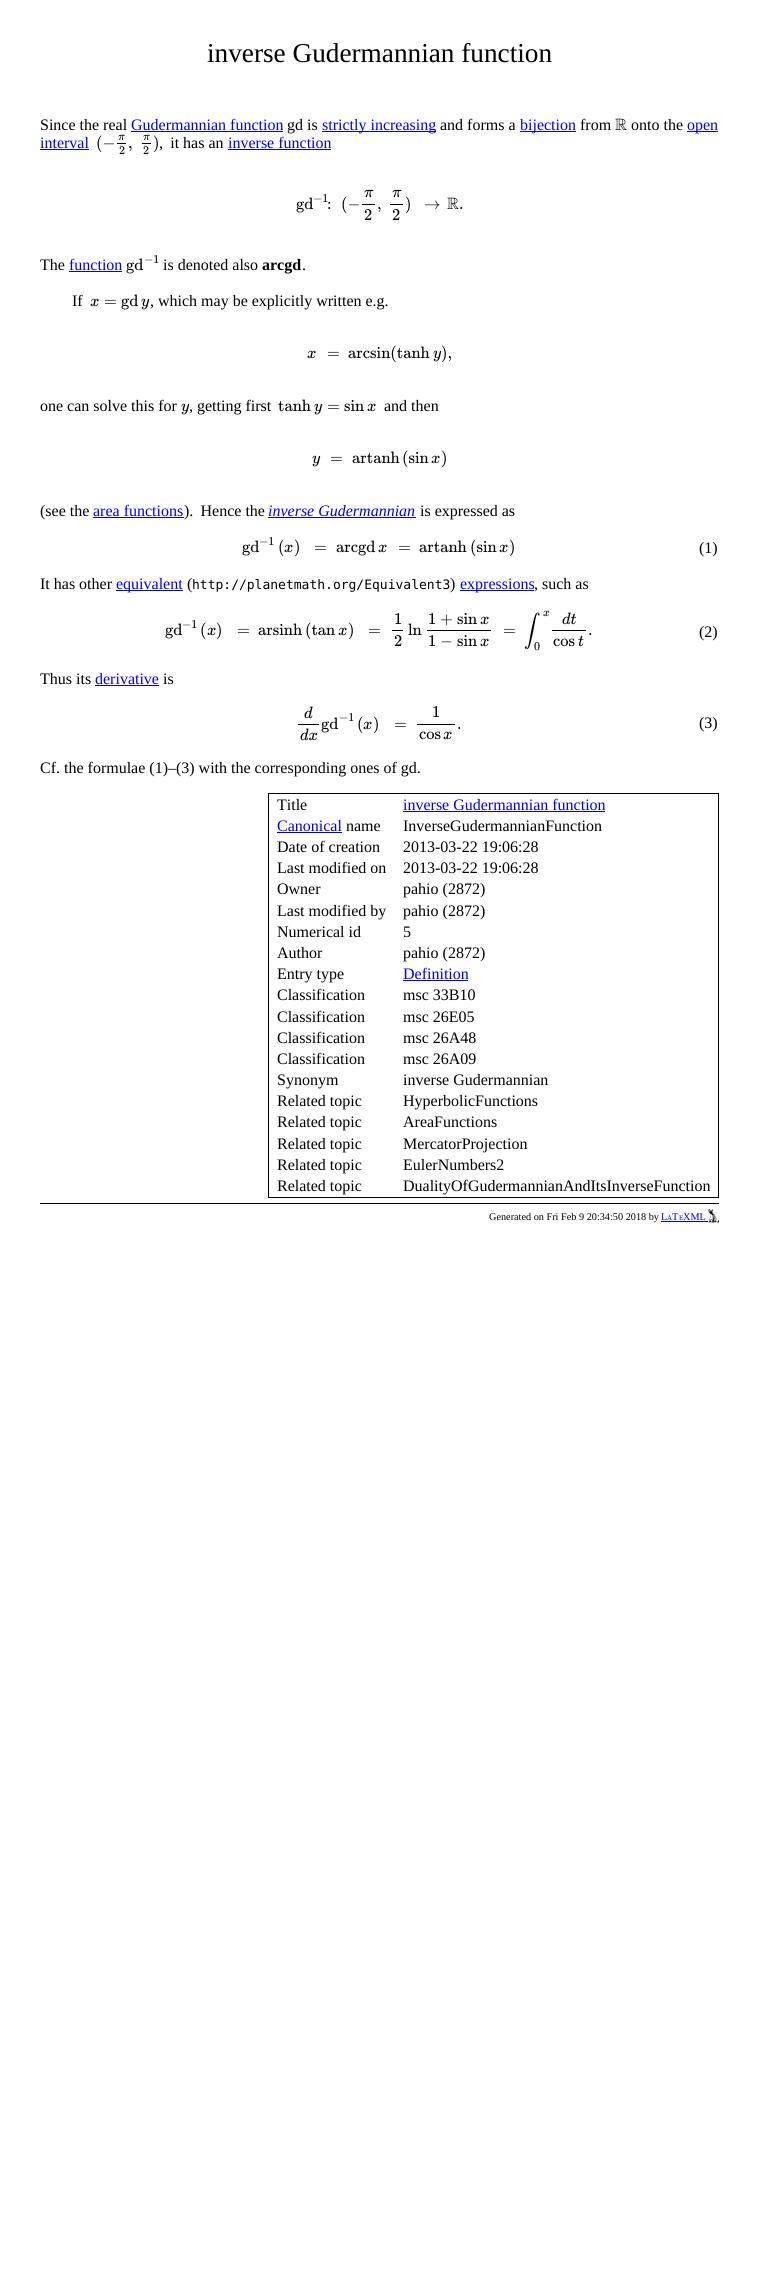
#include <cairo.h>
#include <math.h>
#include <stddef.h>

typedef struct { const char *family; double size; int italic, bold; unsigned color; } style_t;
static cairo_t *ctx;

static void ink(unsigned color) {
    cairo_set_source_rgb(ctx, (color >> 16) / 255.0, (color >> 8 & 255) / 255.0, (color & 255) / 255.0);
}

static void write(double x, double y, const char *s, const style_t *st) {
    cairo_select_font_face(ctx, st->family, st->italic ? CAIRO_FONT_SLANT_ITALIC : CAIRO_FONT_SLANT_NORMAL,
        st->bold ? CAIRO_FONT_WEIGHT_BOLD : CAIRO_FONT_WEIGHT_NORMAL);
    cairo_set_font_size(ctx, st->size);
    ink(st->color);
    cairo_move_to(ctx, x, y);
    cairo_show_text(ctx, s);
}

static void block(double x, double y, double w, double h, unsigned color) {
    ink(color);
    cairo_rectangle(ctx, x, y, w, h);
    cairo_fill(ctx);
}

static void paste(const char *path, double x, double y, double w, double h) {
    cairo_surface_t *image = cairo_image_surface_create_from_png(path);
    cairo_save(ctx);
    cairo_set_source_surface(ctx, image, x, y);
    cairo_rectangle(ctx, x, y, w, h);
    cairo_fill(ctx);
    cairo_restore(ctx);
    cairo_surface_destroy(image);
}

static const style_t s1 = {"Liberation Serif", 27.25, 0, 0, 0x000000};
static const style_t s2 = {"Liberation Serif", 16, 0, 0, 0x000000};
static const style_t s3 = {"Liberation Serif", 16, 0, 0, 0x0000ee};
static const style_t s4 = {"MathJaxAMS", 16.5, 0, 0, 0x000000};
static const style_t s5 = {"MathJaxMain", 16.5, 0, 0, 0x000000};
static const style_t s6 = {"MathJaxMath", 12, 1, 0, 0x000000};
static const style_t s7 = {"MathJaxMain", 12, 0, 0, 0x000000};
static const style_t s8 = {"MathJaxMath", 16.5, 1, 0, 0x000000};
static const style_t s9 = {"Liberation Serif", 16, 0, 1, 0x000000};
static const style_t s10 = {"Liberation Serif", 16, 1, 0, 0x0000ee};
static const style_t s11 = {"DejaVu Sans Mono", 13, 0, 0, 0x000000};
static const style_t s12 = {"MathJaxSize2", 16.5, 0, 0, 0x000000};
static const style_t s13 = {"Liberation Serif", 10.25, 0, 0, 0x000000};
static const style_t s14 = {"Liberation Serif", 10.25, 0, 0, 0x0000ee};
static const style_t s15 = {"Liberation Serif", 7, 0, 0, 0x0000ee};

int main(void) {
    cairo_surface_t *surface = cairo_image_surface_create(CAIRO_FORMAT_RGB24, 775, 2295);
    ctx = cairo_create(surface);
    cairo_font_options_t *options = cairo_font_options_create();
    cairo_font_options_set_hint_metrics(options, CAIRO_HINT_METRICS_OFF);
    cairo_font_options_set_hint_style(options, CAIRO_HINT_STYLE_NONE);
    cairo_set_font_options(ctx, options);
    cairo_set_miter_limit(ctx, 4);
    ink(0xffffff);
    cairo_paint(ctx);
    write(207, 62, "inverse Gudermannian function", &s1);
    write(40, 130, "Since the real", &s2);
    write(131, 130, "Gudermannian function", &s3);
    block(131, 131, 152, 1, 0x0000ee);
    write(287, 130, "gd is", &s2);
    block(322, 131, 114, 1, 0x0000ee);
    write(322, 130, "strictly increasing", &s3);
    write(440, 130, "and forms a", &s2);
    block(520, 131, 56, 1, 0x0000ee);
    write(520, 130, "bijection", &s3);
    write(580, 130, "from", &s2);
    write(615, 130, "R", &s4);
    write(631, 130, "onto the", &s2);
    block(687, 131, 31, 1, 0x0000ee);
    write(687, 130, "open", &s3);
    write(40, 148, "interval", &s3);
    block(40, 149, 49, 1, 0x0000ee);
    write(96, 148, "(−", &s5);
    write(118, 140, "π", &s6);
    block(117, 143, 9, 1, 0x000000);
    write(119, 154, "2", &s7);
    write(128, 148, ",", &s5);
    write(143, 140, "π", &s6);
    block(142, 143, 9, 1, 0x000000);
    write(143, 154, "2", &s7);
    write(153, 148, ")", &s5);
    write(159, 148, ",  it has an", &s2);
    write(228, 148, "inverse function", &s3);
    block(228, 149, 103, 1, 0x0000ee);
    write(296, 209, "gd", &s5);
    write(313, 202, "−1", &s7);
    write(327, 209, ":", &s5);
    write(341, 209, "(−", &s5);
    write(364, 197, "π", &s8);
    block(362, 204, 13, 1, 0x000000);
    write(364, 220, "2", &s5);
    write(377, 209, ",", &s5);
    write(392, 197, "π", &s8);
    block(390, 204, 13, 1, 0x000000);
    write(392, 220, "2", &s5);
    write(405, 209, ")", &s5);
    write(424, 209, "→", &s5);
    write(447, 209, "R", &s4);
    write(459, 209, ".", &s5);
    write(40, 270, "The", &s2);
    write(69, 270, "function", &s3);
    block(69, 271, 53, 1, 0x0000ee);
    write(126, 270, "gd", &s5);
    write(144, 263, "−1", &s7);
    write(163, 270, "is denoted also", &s2);
    write(262, 270, "arcgd", &s9);
    write(302, 270, ".", &s2);
    write(72, 306, "If", &s2);
    write(90, 306, "x", &s8);
    write(104, 306, "=", &s5);
    write(121, 306, "gd", &s5);
    write(141, 306, "y", &s8);
    write(150, 306, ", which may be explicitly written e.g.", &s2);
    write(307, 358, "x", &s8);
    write(327, 358, "=", &s5);
    write(348, 358, "arcsin(tanh", &s5);
    write(433, 358, "y", &s8);
    write(441, 358, "),", &s5);
    write(40, 411, "one can solve this for", &s2);
    write(189, 411, ", getting first", &s2);
    write(181, 411, "y", &s8);
    write(278, 411, "tanh", &s5);
    write(314, 411, "y", &s8);
    write(327, 411, "=", &s5);
    write(344, 411, "sin", &s5);
    write(367, 411, "x", &s8);
    write(384, 411, "and then", &s2);
    write(312, 463, "y", &s8);
    write(330, 463, "=", &s5);
    write(352, 463, "artanh", &s5);
    write(402, 463, "(sin", &s5);
    write(431, 463, "x", &s8);
    write(441, 463, ")", &s5);
    write(40, 516, "(see the", &s2);
    write(93, 516, "area functions", &s3);
    block(93, 517, 91, 1, 0x0000ee);
    write(184, 516, ").  Hence the", &s2);
    write(268, 516, "inverse Gudermannian", &s10);
    block(268, 517, 148, 1, 0x0000ee);
    write(420, 516, "is expressed as", &s2);
    write(242, 552, "gd", &s5);
    write(259, 545, "−1", &s7);
    write(278, 552, "(", &s5);
    write(284, 552, "x", &s8);
    write(294, 552, ")", &s5);
    write(314, 552, "=", &s5);
    write(336, 552, "arcgd", &s5);
    write(378, 552, "x", &s8);
    write(398, 552, "=", &s5);
    write(419, 552, "artanh", &s5);
    write(470, 552, "(sin", &s5);
    write(499, 552, "x", &s8);
    write(509, 552, ")", &s5);
    write(699, 553, "(1)", &s2);
    write(40, 589, "It has other", &s2);
    block(116, 590, 67, 1, 0x0000ee);
    write(116, 589, "equivalent", &s3);
    write(187, 589, "(", &s2);
    write(192, 589, "http://planetmath.org/Equivalent3", &s11);
    write(450, 589, ")", &s2);
    block(460, 590, 74, 1, 0x0000ee);
    write(460, 589, "expressions", &s3);
    write(534, 589, ", such as", &s2);
    write(165, 635, "gd", &s5);
    write(182, 628, "−1", &s7);
    write(200, 635, "(", &s5);
    write(207, 635, "x", &s8);
    write(216, 635, ")", &s5);
    write(237, 635, "=", &s5);
    write(258, 635, "arsinh", &s5);
    write(305, 635, "(tan", &s5);
    write(338, 635, "x", &s8);
    write(348, 635, ")", &s5);
    write(368, 635, "=", &s5);
    write(394, 624, "1", &s5);
    block(392, 630, 11, 1, 0x000000);
    write(394, 646, "2", &s5);
    write(408, 635, "ln", &s5);
    write(428, 624, "1", &s5);
    write(440, 624, "+", &s5);
    write(457, 624, "sin", &s5);
    write(480, 624, "x", &s8);
    block(427, 630, 64, 1, 0x000000);
    write(428, 646, "1", &s5);
    write(440, 646, "−", &s5);
    write(457, 646, "sin", &s5);
    write(480, 646, "x", &s8);
    write(503, 635, "=", &s5);
    write(543, 616, "x", &s6);
    write(534, 650, "0", &s7);
    write(524, 635, "∫", &s12);
    write(562, 624, "dt", &s8);
    block(552, 630, 34, 1, 0x000000);
    write(553, 646, "cos", &s5);
    write(578, 646, "t", &s8);
    write(588, 635, ".", &s5);
    write(699, 637, "(2)", &s2);
    write(40, 684, "Thus its", &s2);
    write(95, 684, "derivative", &s3);
    block(95, 685, 64, 1, 0x0000ee);
    write(163, 684, "is", &s2);
    write(304, 718, "d", &s8);
    block(298, 724, 21, 1, 0x000000);
    write(300, 740, "dx", &s8);
    write(321, 729, "gd", &s5);
    write(339, 721, "−1", &s7);
    write(357, 729, "(", &s5);
    write(363, 729, "x", &s8);
    write(373, 729, ")", &s5);
    write(394, 729, "=", &s5);
    write(432, 717, "1", &s5);
    block(417, 724, 38, 1, 0x000000);
    write(419, 739, "cos", &s5);
    write(443, 739, "x", &s8);
    write(457, 729, ".", &s5);
    write(699, 728, "(3)", &s2);
    write(40, 773, "Cf. the formulae (1)–(3) with the corresponding ones of gd.", &s2);
    block(268, 793, 451, 1, 0x000000);
    block(718, 815, 1, 383, 0x000000);
    block(268, 1197, 451, 1, 0x000000);
    block(268, 815, 1, 383, 0x000000);
    block(268, 793, 1, 23, 0x000000);
    write(277, 810, "Title", &s2);
    block(718, 793, 1, 23, 0x000000);
    write(403, 810, "inverse Gudermannian function", &s3);
    block(403, 811, 202, 1, 0x0000ee);
    write(277, 831, "Canonical", &s3);
    block(277, 832, 65, 1, 0x0000ee);
    write(346, 831, "name", &s2);
    write(403, 831, "InverseGudermannianFunction", &s2);
    write(277, 852, "Date of creation", &s2);
    write(403, 852, "2013-03-22 19:06:28", &s2);
    write(277, 873, "Last modified on", &s2);
    write(403, 873, "2013-03-22 19:06:28", &s2);
    write(277, 894, "Owner", &s2);
    write(403, 894, "pahio (2872)", &s2);
    write(277, 916, "Last modified by", &s2);
    write(403, 916, "pahio (2872)", &s2);
    write(277, 937, "Numerical id", &s2);
    write(403, 937, "5", &s2);
    write(277, 958, "Author", &s2);
    write(403, 958, "pahio (2872)", &s2);
    write(277, 979, "Entry type", &s2);
    write(403, 979, "Definition", &s3);
    block(403, 980, 65, 1, 0x0000ee);
    write(277, 1000, "Classification", &s2);
    write(403, 1000, "msc 33B10", &s2);
    write(277, 1022, "Classification", &s2);
    write(403, 1022, "msc 26E05", &s2);
    write(277, 1043, "Classification", &s2);
    write(403, 1043, "msc 26A48", &s2);
    write(277, 1064, "Classification", &s2);
    write(403, 1064, "msc 26A09", &s2);
    write(277, 1085, "Synonym", &s2);
    write(403, 1085, "inverse Gudermannian", &s2);
    write(277, 1106, "Related topic", &s2);
    write(403, 1106, "HyperbolicFunctions", &s2);
    write(277, 1127, "Related topic", &s2);
    write(403, 1127, "AreaFunctions", &s2);
    write(277, 1149, "Related topic", &s2);
    write(403, 1149, "MercatorProjection", &s2);
    write(277, 1170, "Related topic", &s2);
    write(403, 1170, "EulerNumbers2", &s2);
    write(277, 1191, "Related topic", &s2);
    write(403, 1191, "DualityOfGudermannianAndItsInverseFunction", &s2);
    block(40, 1203, 679, 1, 0x000000);
    write(489, 1220, "Generated on Fri Feb 9 20:34:50 2018 by", &s13);
    write(661, 1220, "L", &s14);
    write(667, 1220, "A", &s15);
    block(661, 1221, 47, 1, 0x0000ee);
    write(672, 1220, "T", &s14);
    write(679, 1220, "E", &s15);
    write(683, 1220, "XML", &s14);
    paste("pic1.png", 708, 1209, 11, 14);
    cairo_surface_write_to_png(surface, "screenshot.png");
    cairo_font_options_destroy(options);
    cairo_destroy(ctx);
    cairo_surface_destroy(surface);
    return 0;
}
